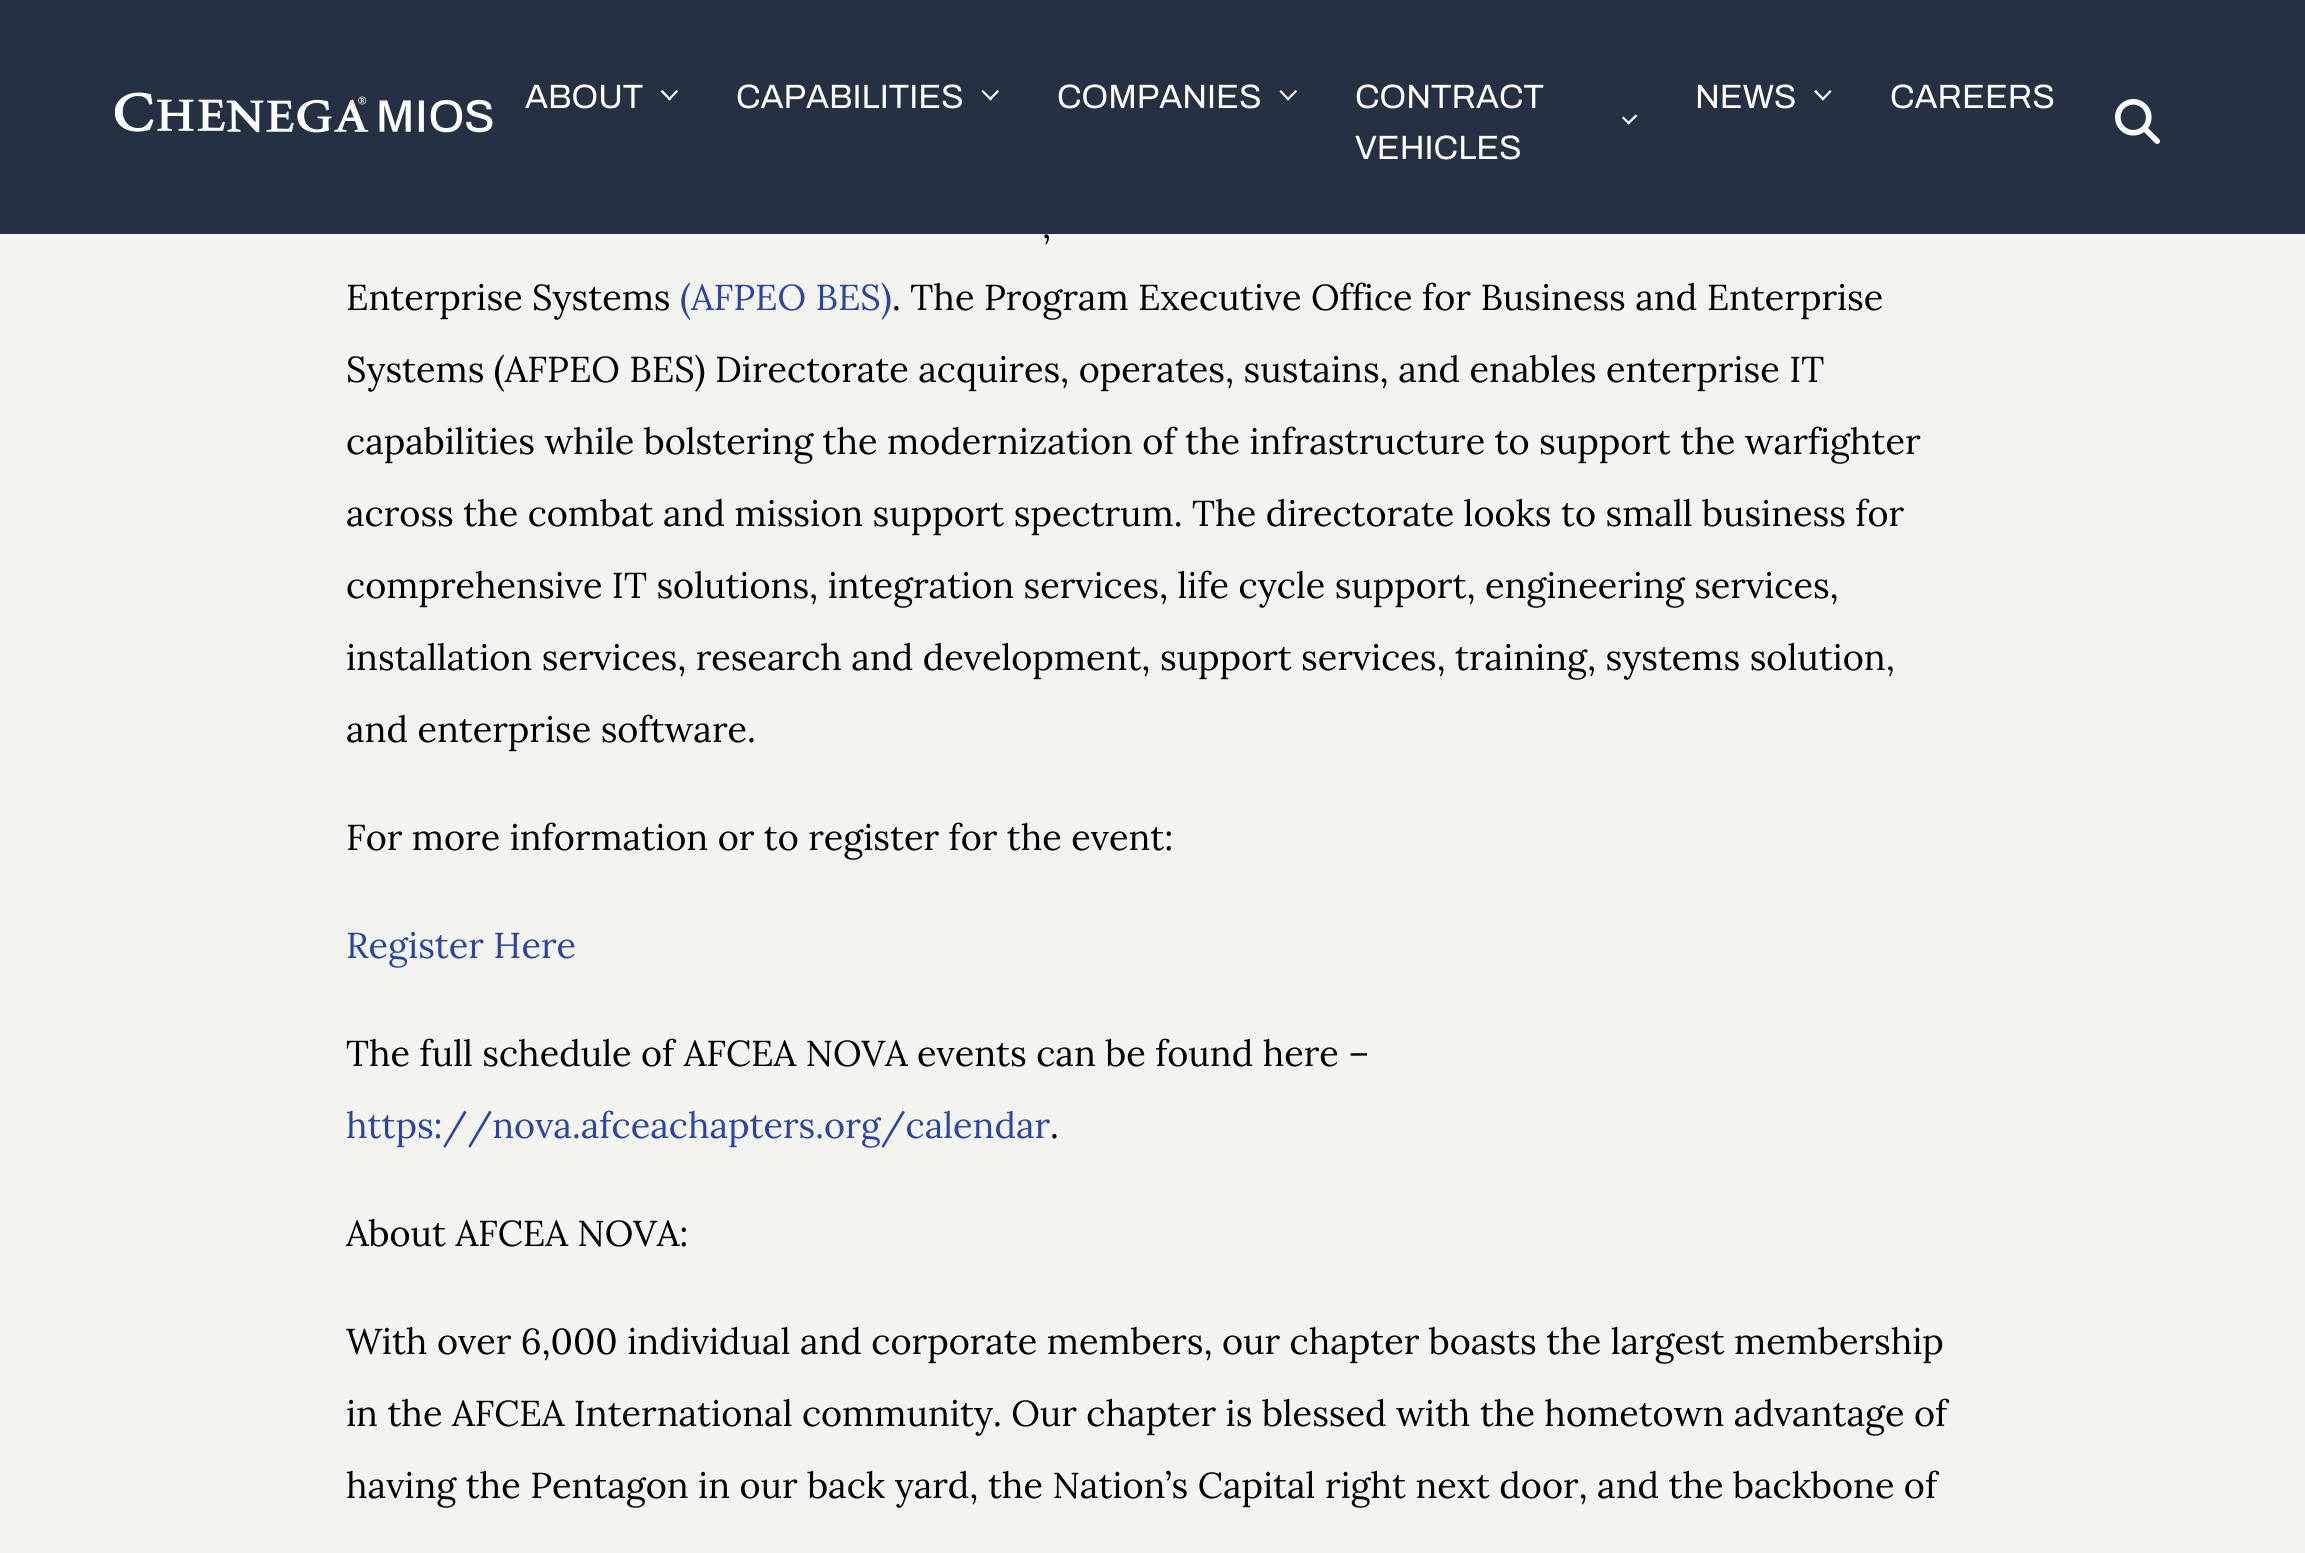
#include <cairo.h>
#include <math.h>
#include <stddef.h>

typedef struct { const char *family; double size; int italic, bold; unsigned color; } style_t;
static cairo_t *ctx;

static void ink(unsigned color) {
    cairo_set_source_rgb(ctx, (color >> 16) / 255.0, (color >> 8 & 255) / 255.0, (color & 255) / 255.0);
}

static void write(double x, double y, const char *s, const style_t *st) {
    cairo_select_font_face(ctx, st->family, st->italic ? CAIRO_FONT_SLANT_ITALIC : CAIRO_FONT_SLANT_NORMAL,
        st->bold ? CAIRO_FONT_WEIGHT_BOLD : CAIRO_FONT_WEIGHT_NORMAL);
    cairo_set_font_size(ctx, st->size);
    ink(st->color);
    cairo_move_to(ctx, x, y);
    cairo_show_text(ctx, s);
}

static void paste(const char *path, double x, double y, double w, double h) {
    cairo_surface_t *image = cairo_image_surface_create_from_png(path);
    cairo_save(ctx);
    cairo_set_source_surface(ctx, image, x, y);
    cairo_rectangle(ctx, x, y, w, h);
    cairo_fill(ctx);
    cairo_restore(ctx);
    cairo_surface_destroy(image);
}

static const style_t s1 = {"Archivo", 33.75, 0, 0, 0xffffff};
static const style_t s2 = {"Lora", 36, 0, 0, 0x000000};
static const style_t s3 = {"Lora", 36, 0, 0, 0x2c46a0};

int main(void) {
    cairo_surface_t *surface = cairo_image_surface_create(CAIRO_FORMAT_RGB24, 2305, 1553);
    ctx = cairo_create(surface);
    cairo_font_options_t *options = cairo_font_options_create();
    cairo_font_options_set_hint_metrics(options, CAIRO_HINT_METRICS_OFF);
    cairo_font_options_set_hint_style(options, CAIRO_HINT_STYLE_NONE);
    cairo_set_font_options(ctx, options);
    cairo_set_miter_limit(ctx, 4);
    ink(0xf3f3f0);
    cairo_paint(ctx);
    cairo_set_source_rgba(ctx, 0.059, 0.106, 0.184, 0.9);
    cairo_rectangle(ctx, 0, 0, 2305, 234);
    cairo_fill(ctx);
    paste("pic1.png", 115, 92, 378, 41);
    write(525, 108, "ABOUT", &s1);
    cairo_new_path(ctx);
    cairo_move_to(ctx, 676.5, 90);
    cairo_line_to(ctx, 678, 91.5);
    cairo_line_to(ctx, 669.5, 100.5);
    cairo_line_to(ctx, 668, 99);
    cairo_close_path(ctx);
    cairo_fill(ctx);
    cairo_new_path(ctx);
    cairo_move_to(ctx, 662.5, 90);
    cairo_line_to(ctx, 671, 99);
    cairo_line_to(ctx, 669.5, 100.5);
    cairo_line_to(ctx, 660.5, 91.5);
    cairo_close_path(ctx);
    cairo_fill(ctx);
    write(736, 108, "CAPABILITIES", &s1);
    cairo_new_path(ctx);
    cairo_move_to(ctx, 997.5, 90);
    cairo_line_to(ctx, 999, 91.5);
    cairo_line_to(ctx, 990.5, 100.5);
    cairo_line_to(ctx, 988.5, 99);
    cairo_close_path(ctx);
    cairo_fill(ctx);
    cairo_new_path(ctx);
    cairo_move_to(ctx, 983, 90);
    cairo_line_to(ctx, 992, 99);
    cairo_line_to(ctx, 990.5, 100.5);
    cairo_line_to(ctx, 981.5, 91.5);
    cairo_close_path(ctx);
    cairo_fill(ctx);
    write(1057, 108, "COMPANIES", &s1);
    cairo_new_path(ctx);
    cairo_move_to(ctx, 1295.5, 90);
    cairo_line_to(ctx, 1297, 91.5);
    cairo_line_to(ctx, 1288, 100.5);
    cairo_line_to(ctx, 1286.5, 99);
    cairo_close_path(ctx);
    cairo_fill(ctx);
    cairo_new_path(ctx);
    cairo_move_to(ctx, 1281, 90);
    cairo_line_to(ctx, 1289.5, 99);
    cairo_line_to(ctx, 1288, 100.5);
    cairo_line_to(ctx, 1279.5, 91.5);
    cairo_close_path(ctx);
    cairo_fill(ctx);
    write(1355, 108, "CONTRACT", &s1);
    cairo_new_path(ctx);
    cairo_move_to(ctx, 1635.5, 114.5);
    cairo_line_to(ctx, 1637.5, 116);
    cairo_line_to(ctx, 1628.5, 124.5);
    cairo_line_to(ctx, 1627, 123);
    cairo_close_path(ctx);
    cairo_fill(ctx);
    cairo_new_path(ctx);
    cairo_move_to(ctx, 1623.5, 116.5);
    cairo_line_to(ctx, 1630, 123);
    cairo_line_to(ctx, 1628.5, 124.5);
    cairo_line_to(ctx, 1622, 118);
    cairo_close_path(ctx);
    cairo_fill(ctx);
    write(1355, 159, "VEHICLES", &s1);
    write(1695, 108, "NEWS", &s1);
    cairo_new_path(ctx);
    cairo_move_to(ctx, 1830, 90);
    cairo_line_to(ctx, 1831.5, 91.5);
    cairo_line_to(ctx, 1823, 100.5);
    cairo_line_to(ctx, 1821.5, 99);
    cairo_close_path(ctx);
    cairo_fill(ctx);
    cairo_new_path(ctx);
    cairo_move_to(ctx, 1816, 90);
    cairo_line_to(ctx, 1824.5, 99);
    cairo_line_to(ctx, 1823, 100.5);
    cairo_line_to(ctx, 1814, 91.5);
    cairo_close_path(ctx);
    cairo_fill(ctx);
    write(1890, 108, "CAREERS", &s1);
    paste("pic2.png", 2115, 99, 45, 45);
    write(1042, 238, ",", &s2);
    write(346, 310, "Enterprise Systems", &s2);
    write(680, 310, "(AFPEO BES)", &s3);
    write(892, 310, ". The Program Executive Office for Business and Enterprise", &s2);
    write(346, 382, "Systems (AFPEO BES) Directorate acquires, operates, sustains, and enables enterprise IT", &s2);
    write(346, 454, "capabilities while bolstering the modernization of the infrastructure to support the warfighter", &s2);
    write(346, 526, "across the combat and mission support spectrum. The directorate looks to small business for", &s2);
    write(346, 598, "comprehensive IT solutions, integration services, life cycle support, engineering services,", &s2);
    write(346, 670, "installation services, research and development, support services, training, systems solution,", &s2);
    write(346, 742, "and enterprise software.", &s2);
    write(346, 850, "For more information or to register for the event:", &s2);
    write(346, 958, "Register Here", &s3);
    write(346, 1066, "The full schedule of AFCEA NOVA events can be found here –", &s2);
    write(346, 1138, "https://nova.afceachapters.org/calendar", &s3);
    write(1050, 1138, ".", &s2);
    write(346, 1246, "About AFCEA NOVA:", &s2);
    write(346, 1354, "With over 6,000 individual and corporate members, our chapter boasts the largest membership", &s2);
    write(346, 1426, "in the AFCEA International community. Our chapter is blessed with the hometown advantage of", &s2);
    write(346, 1498, "having the Pentagon in our back yard, the Nation’s Capital right next door, and the backbone of", &s2);
    cairo_surface_write_to_png(surface, "screenshot.png");
    cairo_font_options_destroy(options);
    cairo_destroy(ctx);
    cairo_surface_destroy(surface);
    return 0;
}
